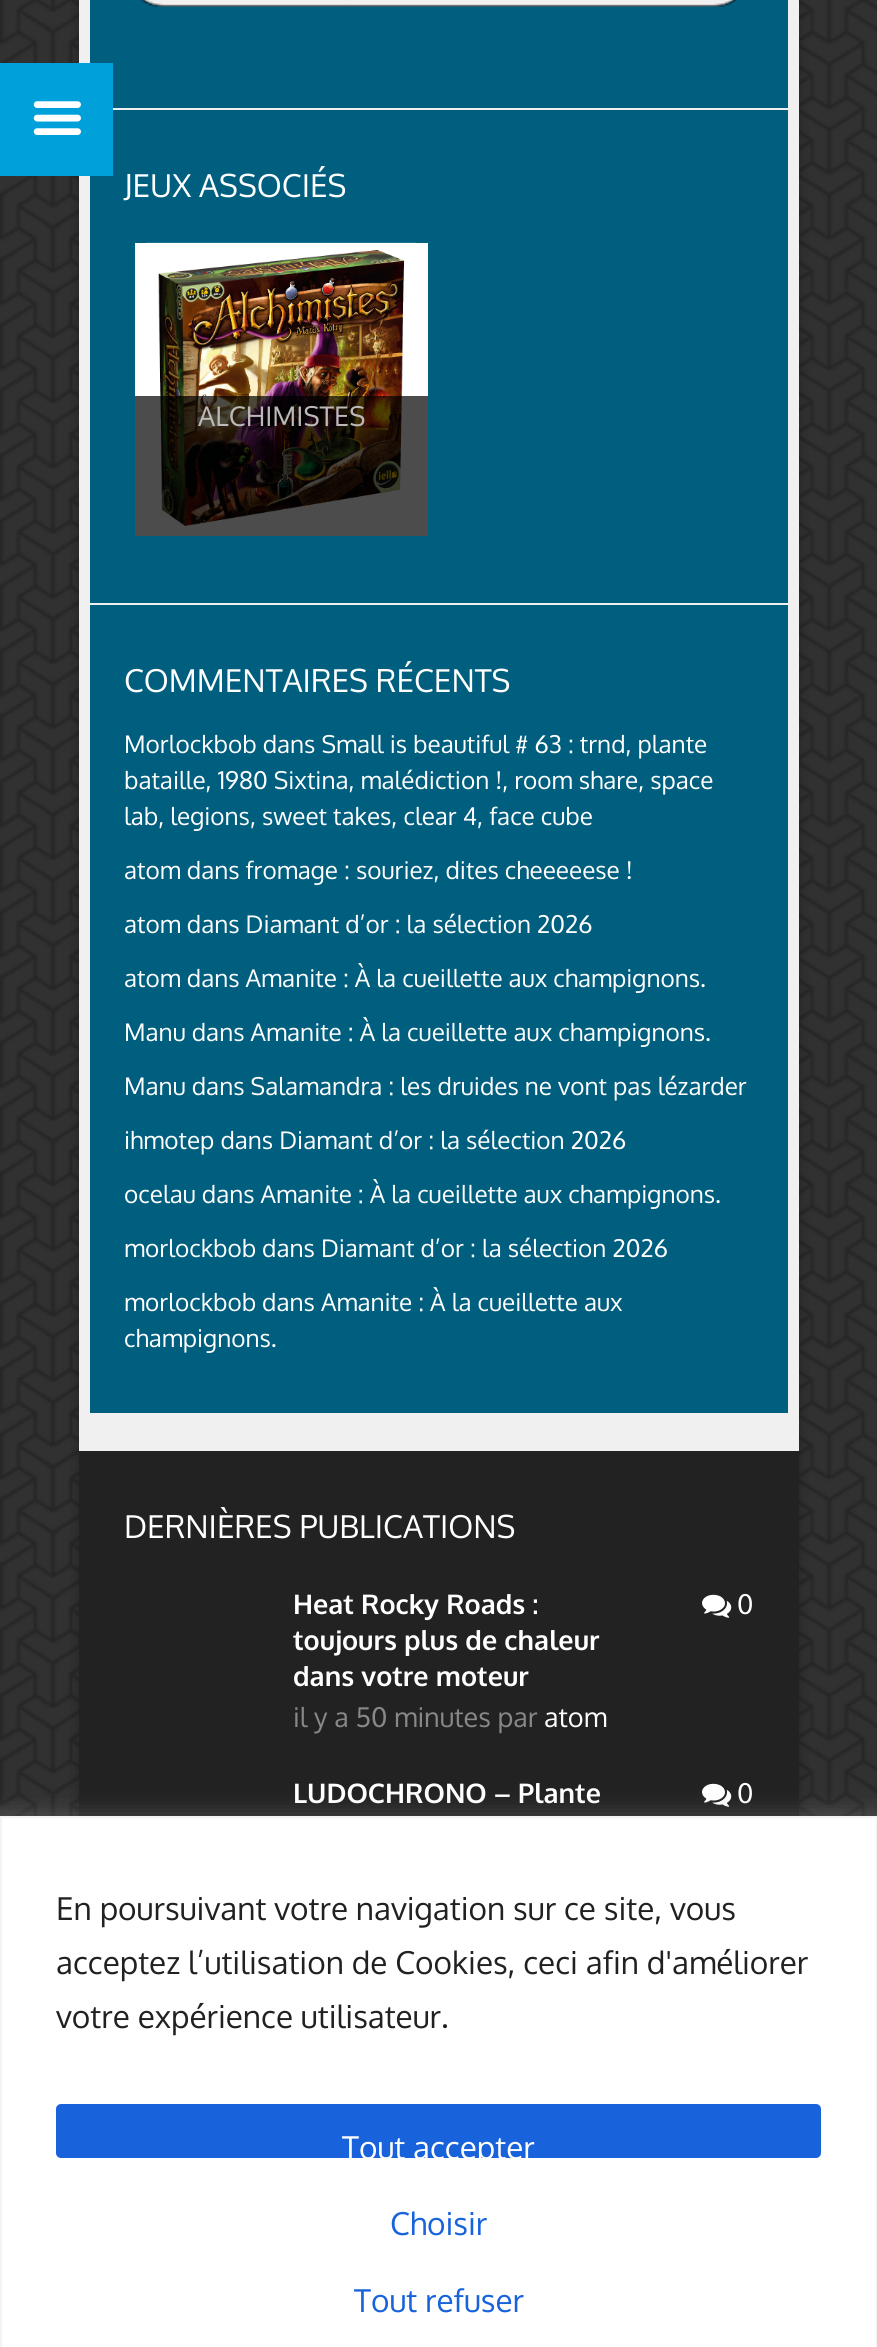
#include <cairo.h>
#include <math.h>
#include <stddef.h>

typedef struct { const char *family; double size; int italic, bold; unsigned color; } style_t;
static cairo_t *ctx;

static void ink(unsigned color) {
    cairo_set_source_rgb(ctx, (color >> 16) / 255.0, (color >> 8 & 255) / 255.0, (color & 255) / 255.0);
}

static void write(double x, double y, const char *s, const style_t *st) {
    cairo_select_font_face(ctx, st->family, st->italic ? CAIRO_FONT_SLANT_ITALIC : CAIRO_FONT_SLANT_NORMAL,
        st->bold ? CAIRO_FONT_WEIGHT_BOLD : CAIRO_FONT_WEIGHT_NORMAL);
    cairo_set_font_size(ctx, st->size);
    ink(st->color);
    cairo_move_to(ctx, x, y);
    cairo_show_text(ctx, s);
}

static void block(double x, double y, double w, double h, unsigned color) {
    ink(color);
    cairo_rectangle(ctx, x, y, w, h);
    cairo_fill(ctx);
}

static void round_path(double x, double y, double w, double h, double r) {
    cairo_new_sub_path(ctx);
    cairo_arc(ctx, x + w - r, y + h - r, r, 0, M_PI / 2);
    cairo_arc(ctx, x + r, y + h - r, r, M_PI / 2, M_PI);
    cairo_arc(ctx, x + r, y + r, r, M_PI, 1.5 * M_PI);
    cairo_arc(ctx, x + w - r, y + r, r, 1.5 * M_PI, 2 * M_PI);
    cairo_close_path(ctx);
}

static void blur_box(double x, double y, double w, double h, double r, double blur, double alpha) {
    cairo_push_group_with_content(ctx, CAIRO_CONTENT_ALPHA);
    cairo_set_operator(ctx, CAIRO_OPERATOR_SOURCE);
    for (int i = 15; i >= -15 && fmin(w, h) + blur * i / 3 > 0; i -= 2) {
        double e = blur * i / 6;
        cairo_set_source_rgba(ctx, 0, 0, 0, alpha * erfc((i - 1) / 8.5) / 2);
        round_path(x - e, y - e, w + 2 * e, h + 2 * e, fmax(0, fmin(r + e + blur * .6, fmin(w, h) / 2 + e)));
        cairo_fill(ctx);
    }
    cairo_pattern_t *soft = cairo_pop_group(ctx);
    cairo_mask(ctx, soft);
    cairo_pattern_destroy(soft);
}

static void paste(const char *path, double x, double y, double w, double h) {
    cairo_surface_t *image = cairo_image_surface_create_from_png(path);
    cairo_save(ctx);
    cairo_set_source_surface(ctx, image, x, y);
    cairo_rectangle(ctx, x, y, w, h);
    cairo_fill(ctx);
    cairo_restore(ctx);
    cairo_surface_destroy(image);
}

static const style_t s1 = {"Oxygen", 31.5, 0, 0, 0xffffff};
static const style_t s2 = {"Oxygen", 27, 0, 0, 0xbcb9b8};
static const style_t s3 = {"Oxygen", 24.3, 0, 0, 0xffffff};
static const style_t s4 = {"Oxygen", 27, 0, 1, 0xffffff};
static const style_t s5 = {"Oxygen", 27, 0, 0, 0xffffff};
static const style_t s6 = {"Oxygen", 27, 0, 0, 0x888888};
static const style_t s7 = {"Oxygen", 31.5, 0, 0, 0x212121};
static const style_t s8 = {"Oxygen", 31.5, 0, 0, 0x1863dc};

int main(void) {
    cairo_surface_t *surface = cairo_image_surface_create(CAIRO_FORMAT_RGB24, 877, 2347);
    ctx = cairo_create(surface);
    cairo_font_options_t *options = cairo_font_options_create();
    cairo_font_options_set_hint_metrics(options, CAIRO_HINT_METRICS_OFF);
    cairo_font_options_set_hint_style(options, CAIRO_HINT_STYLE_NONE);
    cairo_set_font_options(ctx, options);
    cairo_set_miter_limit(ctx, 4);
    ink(0xffffff);
    cairo_paint(ctx);
    paste("pic1.png", 0, 0, 877, 1816);
    ink(0x000000);
    blur_box(77, -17, 724, 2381, 0, 5.5, 0.2);
    block(79, 0, 720, 1451, 0xf0f0f0);
    block(90, 0, 698, 108, 0x005e7f);
    block(90, 110, 698, 493, 0x005e7f);
    block(0, 63, 113, 113, 0x00a0db);
    paste("pic2.png", 33, 101, 48, 34);
    paste("pic3.png", 140, 0, 597, 7);
    write(124, 197, "JEUX ASSOCIÉS", &s1);
    block(135, 243, 293, 293, 0xffffff);
    paste("pic4.png", 146, 242, 271, 284);
    cairo_set_source_rgba(ctx, 0, 0, 0, 0.7);
    cairo_rectangle(ctx, 135, 396, 293, 140);
    cairo_fill(ctx);
    write(198, 426, "ALCHIMISTES", &s2);
    block(90, 605, 698, 808, 0x005e7f);
    write(124, 692, "COMMENTAIRES RÉCENTS", &s1);
    write(124, 753, "Morlockbob dans Small is beautiful # 63 : trnd, plante", &s3);
    write(124, 789, "bataille, 1980 Sixtina, malédiction !, room share, space", &s3);
    write(124, 825, "lab, legions, sweet takes, clear 4, face cube", &s3);
    write(124, 879, "atom dans fromage : souriez, dites cheeeeese !", &s3);
    write(124, 933, "atom dans Diamant d’or : la sélection 2026", &s3);
    write(124, 987, "atom dans Amanite : À la cueillette aux champignons.", &s3);
    write(124, 1041, "Manu dans Amanite : À la cueillette aux champignons.", &s3);
    write(124, 1095, "Manu dans Salamandra : les druides ne vont pas lézarder", &s3);
    write(124, 1149, "ihmotep dans Diamant d’or : la sélection 2026", &s3);
    write(124, 1203, "ocelau dans Amanite : À la cueillette aux champignons.", &s3);
    write(124, 1257, "morlockbob dans Diamant d’or : la sélection 2026", &s3);
    write(124, 1311, "morlockbob dans Amanite : À la cueillette aux", &s3);
    write(124, 1347, "champignons.", &s3);
    block(79, 1451, 720, 365, 0x222222);
    write(124, 1538, "DERNIÈRES PUBLICATIONS", &s1);
    write(293, 1614, "Heat Rocky Roads :", &s4);
    write(293, 1650, "toujours plus de chaleur", &s4);
    write(293, 1686, "dans votre moteur", &s4);
    paste("pic5.png", 702, 1594, 30, 24);
    write(737, 1614, "0", &s5);
    write(293, 1727, "il y a 50 minutes par", &s6);
    write(544, 1727, "atom", &s5);
    write(293, 1803, "LUDOCHRONO – Plante", &s4);
    paste("pic5.png", 702, 1783, 30, 24);
    write(737, 1803, "0", &s5);
    ink(0xacabab);
    blur_box(0, 1814, 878, 533, 0, 11, 0.3);
    ink(0xffffff);
    cairo_rectangle(ctx, 1, 1817, 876, 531);
    cairo_fill_preserve(ctx);
    ink(0xf4f4f4);
    cairo_stroke(ctx);
    write(56, 1920, "En poursuivant votre navigation sur ce site, vous", &s7);
    write(56, 1974, "acceptez l’utilisation de Cookies, ceci afin d'améliorer", &s7);
    write(56, 2028, "votre expérience utilisateur.", &s7);
    ink(0x1863dc);
    round_path(56, 2104, 765, 54, 5);
    cairo_fill(ctx);
    write(342, 2159, "Tout accepter", &s1);
    write(390, 2235, "Choisir", &s8);
    write(354, 2312, "Tout refuser", &s8);
    cairo_surface_write_to_png(surface, "screenshot.png");
    cairo_font_options_destroy(options);
    cairo_destroy(ctx);
    cairo_surface_destroy(surface);
    return 0;
}
